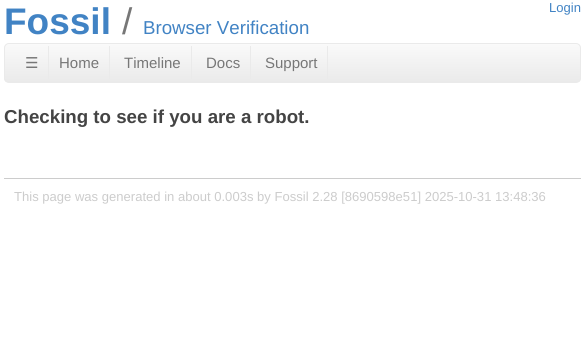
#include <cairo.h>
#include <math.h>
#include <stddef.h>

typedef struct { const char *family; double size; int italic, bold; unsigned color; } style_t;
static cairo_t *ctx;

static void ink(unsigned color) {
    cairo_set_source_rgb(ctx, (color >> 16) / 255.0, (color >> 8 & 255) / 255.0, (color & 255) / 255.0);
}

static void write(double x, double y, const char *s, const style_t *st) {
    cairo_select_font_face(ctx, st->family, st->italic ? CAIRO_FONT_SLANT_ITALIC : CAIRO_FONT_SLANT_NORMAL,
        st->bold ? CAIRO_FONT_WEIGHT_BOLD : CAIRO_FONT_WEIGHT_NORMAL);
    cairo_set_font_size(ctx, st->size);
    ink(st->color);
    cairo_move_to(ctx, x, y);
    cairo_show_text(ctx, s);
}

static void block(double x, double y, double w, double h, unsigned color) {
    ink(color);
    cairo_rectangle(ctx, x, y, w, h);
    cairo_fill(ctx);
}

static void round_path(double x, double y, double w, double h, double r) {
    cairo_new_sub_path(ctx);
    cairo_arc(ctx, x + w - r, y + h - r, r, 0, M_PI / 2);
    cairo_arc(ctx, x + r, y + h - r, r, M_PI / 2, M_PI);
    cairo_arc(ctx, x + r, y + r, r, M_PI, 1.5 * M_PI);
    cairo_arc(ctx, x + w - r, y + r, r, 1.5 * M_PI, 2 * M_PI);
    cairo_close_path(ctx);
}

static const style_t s1 = {"Liberation Sans", 37, 0, 1, 0x4183c4};
static const style_t s2 = {"Liberation Sans", 37, 0, 0, 0x777777};
static const style_t s3 = {"Liberation Sans", 18.7, 0, 0, 0x4183c4};
static const style_t s4 = {"Liberation Sans", 13.05, 0, 0, 0x4183c4};
static const style_t s5 = {"DejaVu Sans", 15, 0, 0, 0x777777};
static const style_t s6 = {"Liberation Sans", 15, 0, 0, 0x777777};
static const style_t s7 = {"Liberation Sans", 18.7, 0, 1, 0x444444};
static const style_t s8 = {"Liberation Sans", 13.05, 0, 0, 0xcccccc};

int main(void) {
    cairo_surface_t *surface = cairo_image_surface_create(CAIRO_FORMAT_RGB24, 585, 356);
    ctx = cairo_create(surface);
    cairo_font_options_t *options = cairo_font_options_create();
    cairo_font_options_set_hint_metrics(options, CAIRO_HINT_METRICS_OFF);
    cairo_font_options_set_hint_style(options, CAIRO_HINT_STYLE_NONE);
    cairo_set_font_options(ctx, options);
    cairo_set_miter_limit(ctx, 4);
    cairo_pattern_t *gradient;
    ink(0xffffff);
    cairo_paint(ctx);
    write(4, 34, "Fossil", &s1);
    write(122, 34, "/", &s2);
    write(143, 34, "Browser Verification", &s3);
    write(549, 12, "Login", &s4);
    cairo_save(ctx);
    round_path(4, 43, 577, 40, 5);
    cairo_clip(ctx);
    gradient = cairo_pattern_create_linear(293, 44, 293, 82);
    cairo_pattern_add_color_stop_rgba(gradient, 0, 0.98, 0.98, 0.98, 1);
    cairo_pattern_add_color_stop_rgba(gradient, 1, 0.918, 0.918, 0.918, 1);
    cairo_set_source(ctx, gradient);
    cairo_pattern_destroy(gradient);
    cairo_rectangle(ctx, 4, 44, 577, 38);
    cairo_fill(ctx);
    cairo_restore(ctx);
    round_path(4.5, 43.5, 576, 39, 4.5);
    ink(0xeaeaea);
    cairo_set_line_width(ctx, 1);
    cairo_stroke(ctx);
    write(25, 68, "☰", &s5);
    block(48, 46, 1, 33, 0xeaeaea);
    write(59, 68, "Home", &s6);
    block(109, 46, 1, 33, 0xeaeaea);
    write(124, 68, "Timeline", &s6);
    block(191, 46, 1, 33, 0xeaeaea);
    write(206, 68, "Docs", &s6);
    block(250, 46, 1, 33, 0xeaeaea);
    write(265, 68, "Support", &s6);
    block(327, 46, 1, 33, 0xeaeaea);
    write(4, 123, "Checking to see if you are a robot.", &s7);
    block(4, 178, 577, 1, 0xcccccc);
    write(14, 201, "This page was generated in about 0.003s by Fossil 2.28 [8690598e51] 2025-10-31 13:48:36", &s8);
    cairo_surface_write_to_png(surface, "screenshot.png");
    cairo_font_options_destroy(options);
    cairo_destroy(ctx);
    cairo_surface_destroy(surface);
    return 0;
}
